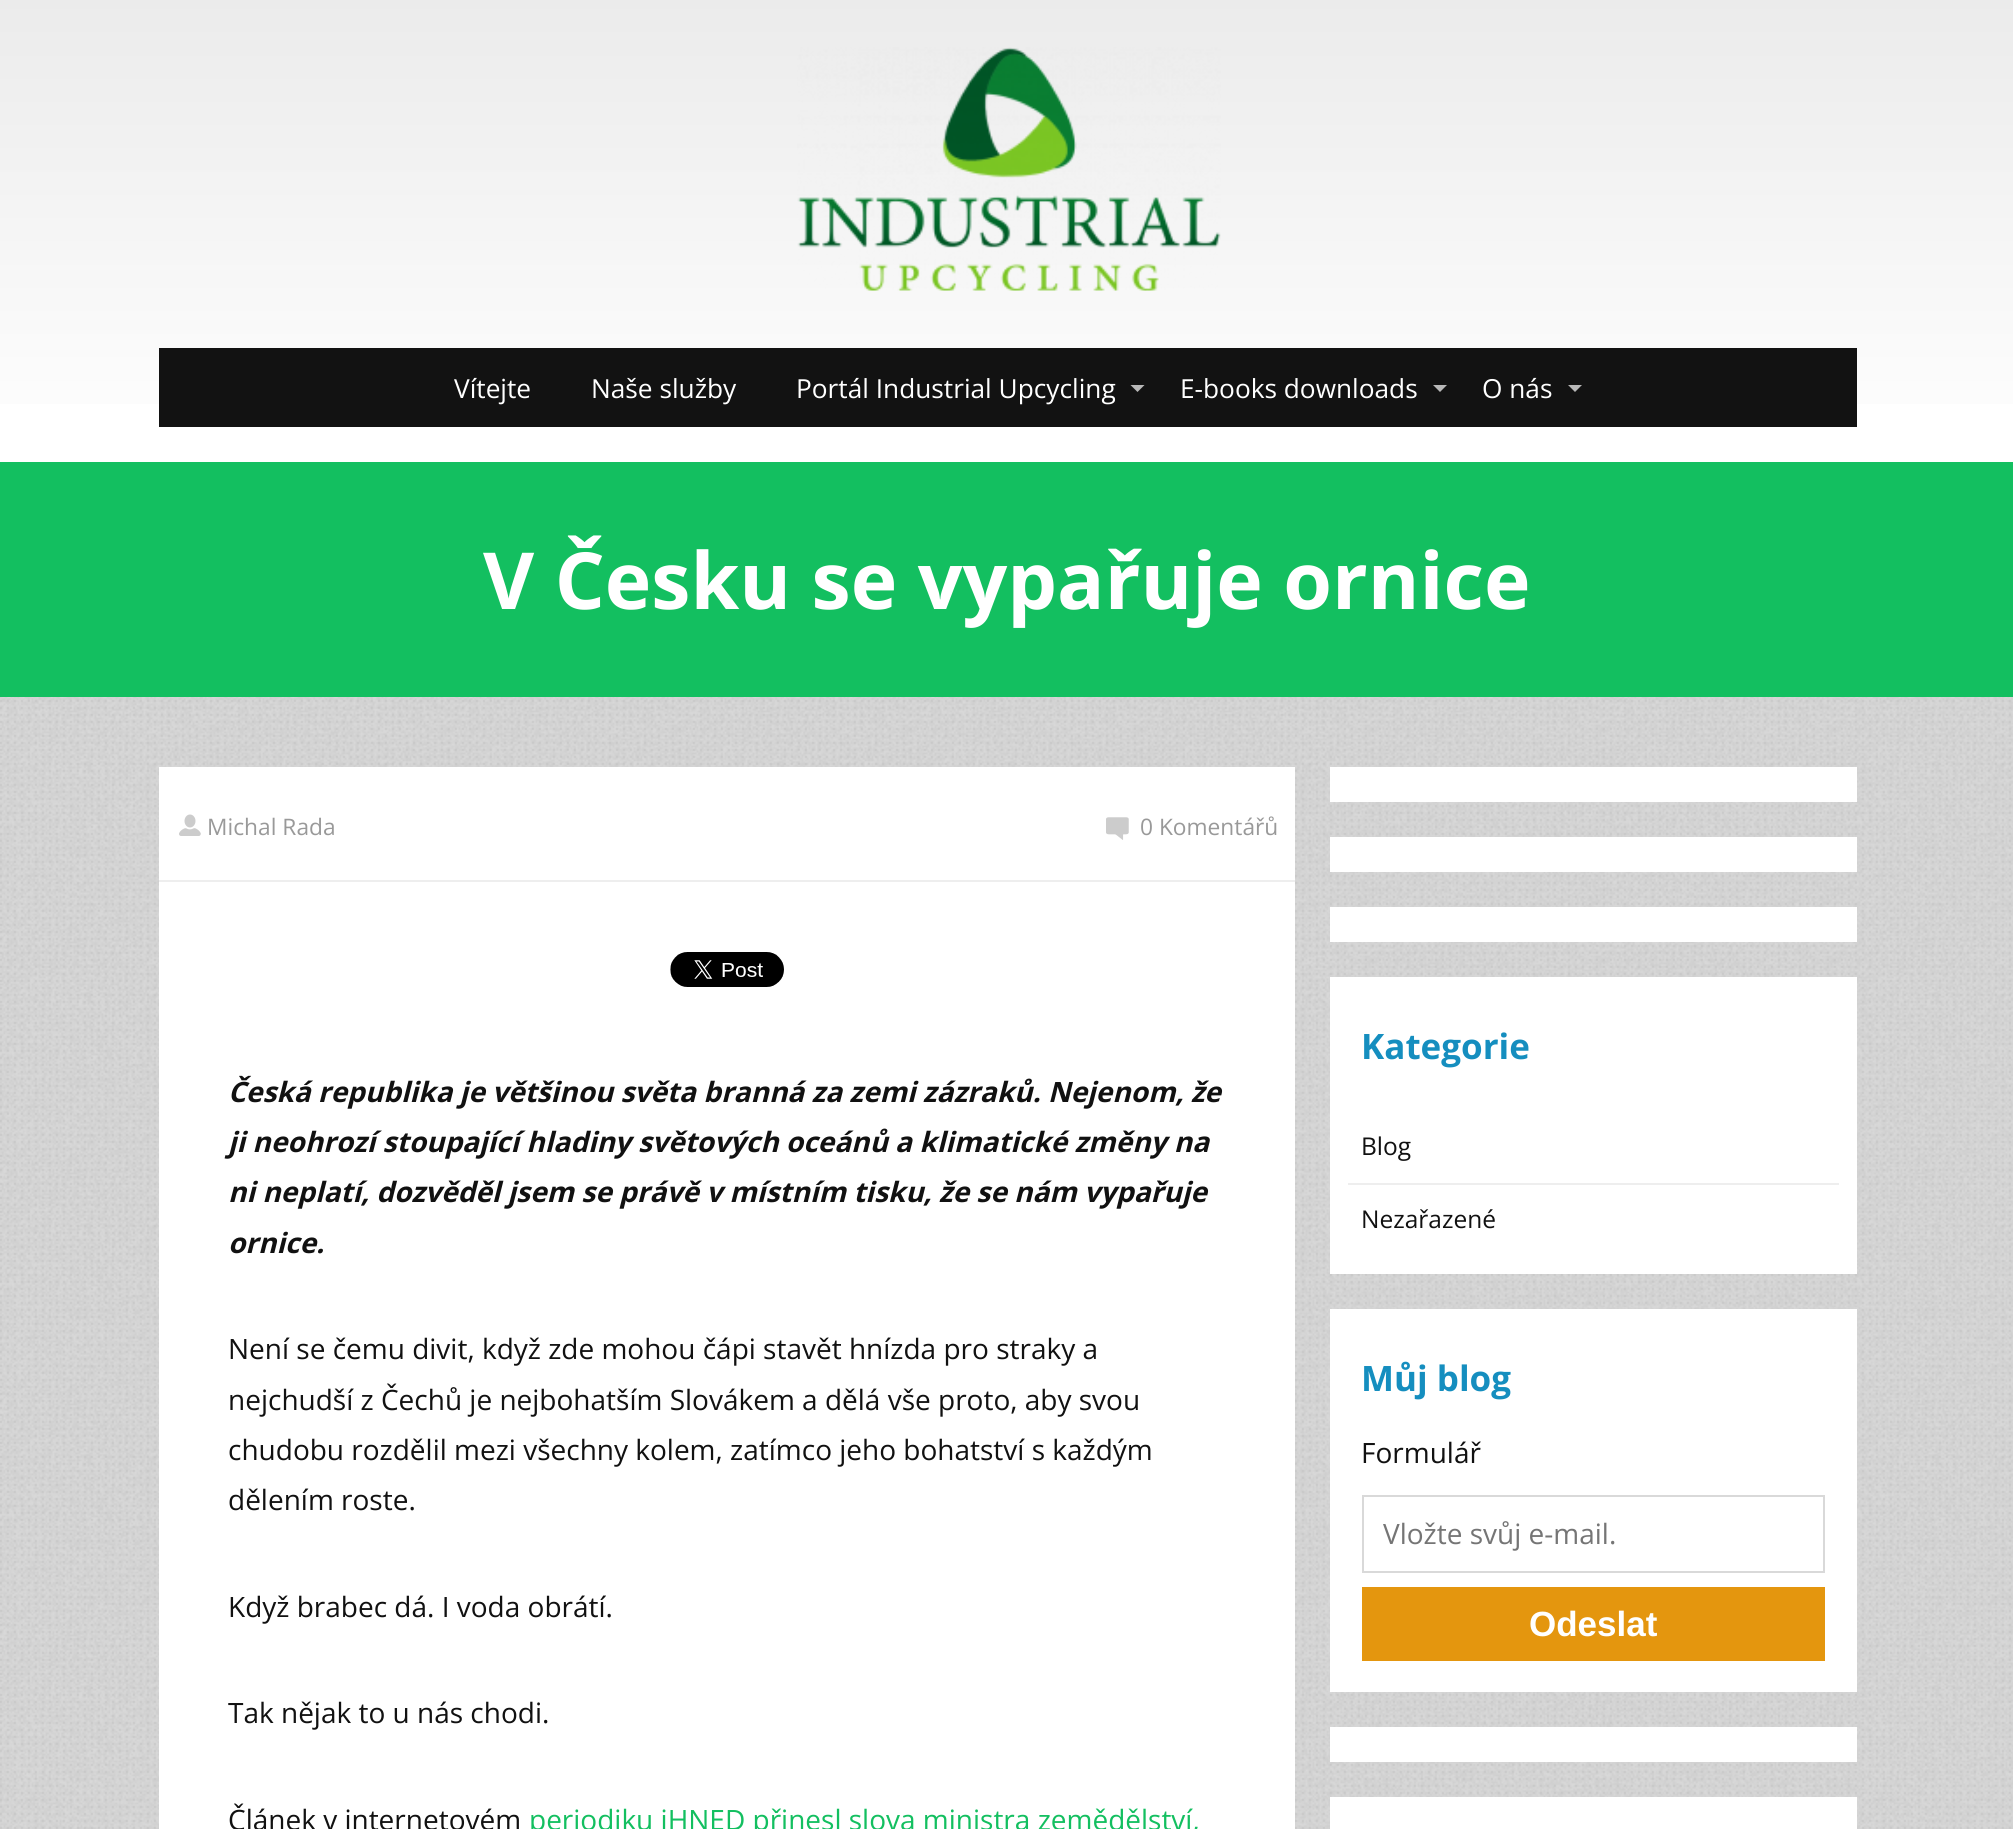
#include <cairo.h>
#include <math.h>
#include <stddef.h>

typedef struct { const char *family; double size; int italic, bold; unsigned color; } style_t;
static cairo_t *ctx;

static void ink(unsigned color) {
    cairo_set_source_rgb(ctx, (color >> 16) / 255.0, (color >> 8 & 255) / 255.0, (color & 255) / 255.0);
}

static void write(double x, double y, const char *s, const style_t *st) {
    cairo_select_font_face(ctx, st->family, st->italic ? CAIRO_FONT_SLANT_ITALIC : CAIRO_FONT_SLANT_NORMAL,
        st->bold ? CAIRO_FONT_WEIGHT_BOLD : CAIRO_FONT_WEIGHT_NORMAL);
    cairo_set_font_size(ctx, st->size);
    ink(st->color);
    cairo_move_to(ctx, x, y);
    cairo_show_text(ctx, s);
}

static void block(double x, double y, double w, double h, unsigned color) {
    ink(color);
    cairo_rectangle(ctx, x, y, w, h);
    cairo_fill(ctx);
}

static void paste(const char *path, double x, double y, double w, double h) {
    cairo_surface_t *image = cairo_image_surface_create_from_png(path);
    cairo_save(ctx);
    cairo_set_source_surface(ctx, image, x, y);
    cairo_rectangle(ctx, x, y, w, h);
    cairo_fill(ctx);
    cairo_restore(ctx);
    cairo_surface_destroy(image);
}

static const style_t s1 = {"Open Sans", 26.25, 0, 0, 0xffffff};
static const style_t s2 = {"Open Sans", 78.75, 0, 1, 0xffffff};
static const style_t s3 = {"Open Sans", 22.75, 0, 0, 0x999999};
static const style_t s4 = {"Open Sans", 28, 1, 1, 0x111111};
static const style_t s5 = {"Open Sans", 28, 0, 0, 0x111111};
static const style_t s6 = {"Open Sans", 28, 0, 0, 0x13bf60};
static const style_t s7 = {"Open Sans", 35, 0, 1, 0x158ebf};
static const style_t s8 = {"Open Sans", 24.5, 0, 0, 0x111111};
static const style_t s9 = {"Open Sans", 28, 0, 0, 0x757575};
static const style_t s10 = {"Liberation Sans", 35, 0, 1, 0xffffff};

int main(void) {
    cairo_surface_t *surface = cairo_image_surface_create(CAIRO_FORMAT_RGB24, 2013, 1829);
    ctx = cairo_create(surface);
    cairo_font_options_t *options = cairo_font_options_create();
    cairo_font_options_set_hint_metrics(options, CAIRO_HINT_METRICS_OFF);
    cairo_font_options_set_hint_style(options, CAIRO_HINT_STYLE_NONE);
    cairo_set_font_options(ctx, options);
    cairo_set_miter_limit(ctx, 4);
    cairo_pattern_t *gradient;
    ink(0xffffff);
    cairo_paint(ctx);
    paste("pic1.png", 0, 697, 2013, 1132);
    gradient = cairo_pattern_create_linear(0, 0, 0, 462);
    cairo_pattern_add_color_stop_rgba(gradient, 0, 0.922, 0.922, 0.922, 1);
    cairo_pattern_add_color_stop_rgba(gradient, 1, 1, 1, 1, 1);
    cairo_set_source(ctx, gradient);
    cairo_pattern_destroy(gradient);
    cairo_rectangle(ctx, 0, 0, 2013, 404);
    cairo_fill(ctx);
    paste("pic2.png", 797, 47, 424, 244);
    block(159, 348, 1698, 79, 0x121212);
    write(454, 398, "Vítejte", &s1);
    write(591, 398, "Naše služby", &s1);
    write(796, 398, "Portál Industrial Upcycling", &s1);
    ink(0xb8b8b8);
    cairo_new_path(ctx);
    cairo_move_to(ctx, 1130.5, 385);
    cairo_line_to(ctx, 1144.5, 385);
    cairo_line_to(ctx, 1137.5, 392);
    cairo_close_path(ctx);
    cairo_fill(ctx);
    write(1180, 398, "E-books downloads", &s1);
    ink(0xb8b8b8);
    cairo_new_path(ctx);
    cairo_move_to(ctx, 1433, 385);
    cairo_line_to(ctx, 1447, 385);
    cairo_line_to(ctx, 1440, 392);
    cairo_close_path(ctx);
    cairo_fill(ctx);
    write(1482, 398, "O nás", &s1);
    ink(0xb8b8b8);
    cairo_new_path(ctx);
    cairo_move_to(ctx, 1568, 385);
    cairo_line_to(ctx, 1582, 385);
    cairo_line_to(ctx, 1575, 392);
    cairo_close_path(ctx);
    cairo_fill(ctx);
    block(0, 462, 2013, 235, 0x13bf60);
    write(483, 609, "V Česku se vypařuje ornice", &s2);
    block(159, 767, 1136, 1062, 0xffffff);
    block(159, 880, 1136, 2, 0xeeeeee);
    paste("pic3.png", 179, 814, 22, 22);
    write(207, 835, "Michal Rada", &s3);
    paste("pic4.png", 1106, 817, 23, 23);
    write(1140, 835, "0 Komentářů", &s3);
    paste("pic5.png", 670, 952, 114, 35);
    write(228, 1102, "Česká republika je většinou světa branná za zemi zázraků. Nejenom, že", &s4);
    write(228, 1152, "ji neohrozí stoupající hladiny světových oceánů a klimatické změny na", &s4);
    write(228, 1202, "ni neplatí, dozvěděl jsem se právě v místním tisku, že se nám vypařuje", &s4);
    write(228, 1253, "ornice.", &s4);
    write(228, 1359, "Není se čemu divit, když zde mohou čápi stavět hnízda pro straky a", &s5);
    write(228, 1410, "nejchudší z Čechů je nejbohatším Slovákem a dělá vše proto, aby svou", &s5);
    write(228, 1460, "chudobu rozdělil mezi všechny kolem, zatímco jeho bohatství s každým", &s5);
    write(228, 1510, "dělením roste.", &s5);
    write(228, 1617, "Když brabec dá. I voda obrátí.", &s5);
    write(228, 1723, "Tak nějak to u nás chodi.", &s5);
    write(228, 1830, "Článek v internetovém", &s5);
    write(529, 1830, "periodiku iHNED přinesl slova ministra zemědělství,", &s6);
    block(1330, 767, 527, 35, 0xffffff);
    block(1330, 837, 527, 35, 0xffffff);
    block(1330, 907, 527, 35, 0xffffff);
    block(1330, 977, 527, 297, 0xffffff);
    write(1361, 1059, "Kategorie", &s7);
    block(1348, 1183, 491, 2, 0xeeeeee);
    write(1361, 1155, "Blog", &s8);
    write(1361, 1228, "Nezařazené", &s8);
    block(1330, 1309, 527, 383, 0xffffff);
    write(1361, 1391, "Můj blog", &s7);
    write(1361, 1463, "Formulář", &s5);
    cairo_rectangle(ctx, 1363, 1496, 461, 76);
    ink(0xd9d9d9);
    cairo_stroke(ctx);
    write(1383, 1544, "Vložte svůj e-mail.", &s9);
    block(1362, 1587, 463, 74, 0xe4960e);
    write(1529, 1636, "Odeslat", &s10);
    block(1330, 1727, 527, 35, 0xffffff);
    block(1330, 1797, 527, 32, 0xffffff);
    cairo_surface_write_to_png(surface, "screenshot.png");
    cairo_font_options_destroy(options);
    cairo_destroy(ctx);
    cairo_surface_destroy(surface);
    return 0;
}
